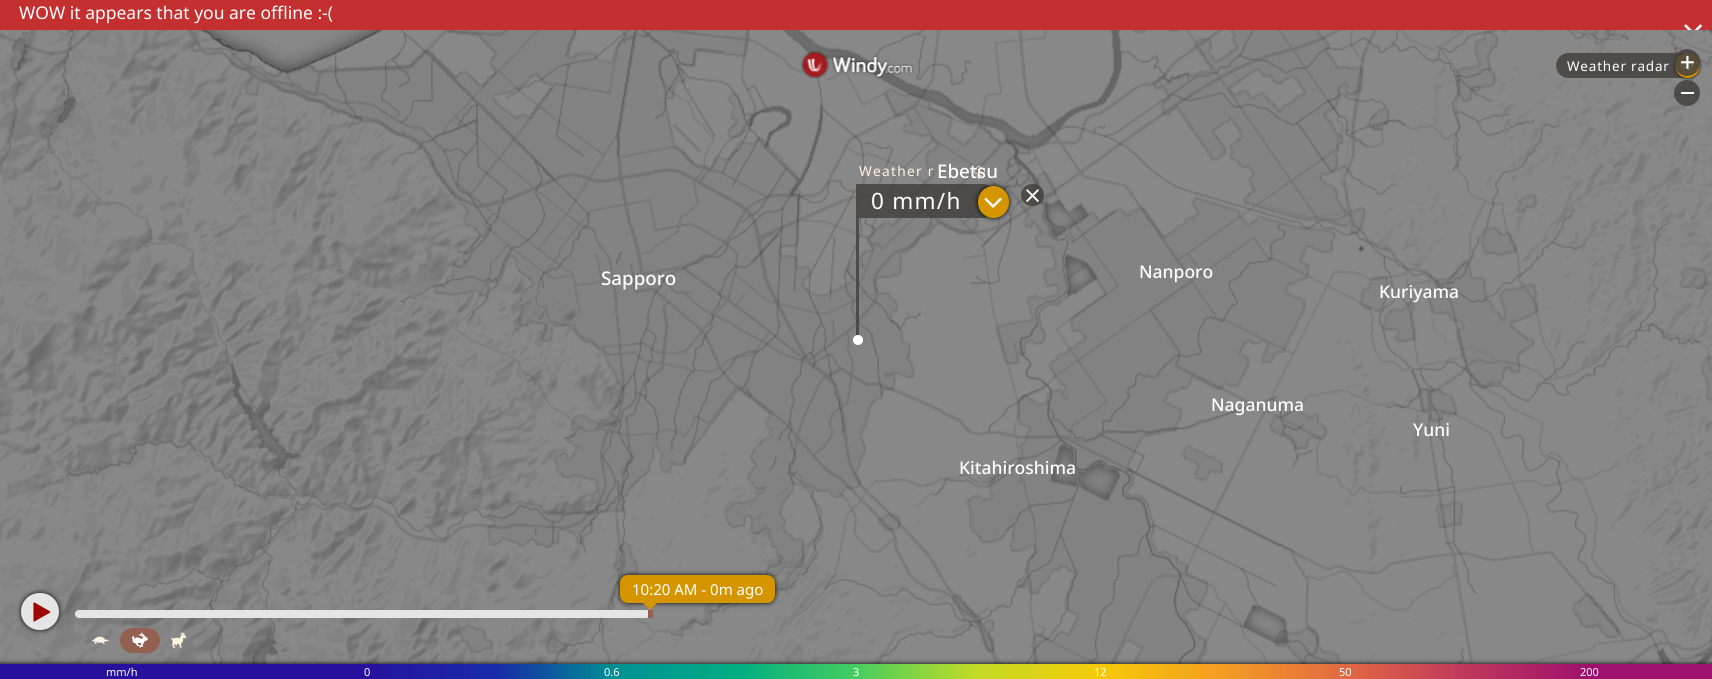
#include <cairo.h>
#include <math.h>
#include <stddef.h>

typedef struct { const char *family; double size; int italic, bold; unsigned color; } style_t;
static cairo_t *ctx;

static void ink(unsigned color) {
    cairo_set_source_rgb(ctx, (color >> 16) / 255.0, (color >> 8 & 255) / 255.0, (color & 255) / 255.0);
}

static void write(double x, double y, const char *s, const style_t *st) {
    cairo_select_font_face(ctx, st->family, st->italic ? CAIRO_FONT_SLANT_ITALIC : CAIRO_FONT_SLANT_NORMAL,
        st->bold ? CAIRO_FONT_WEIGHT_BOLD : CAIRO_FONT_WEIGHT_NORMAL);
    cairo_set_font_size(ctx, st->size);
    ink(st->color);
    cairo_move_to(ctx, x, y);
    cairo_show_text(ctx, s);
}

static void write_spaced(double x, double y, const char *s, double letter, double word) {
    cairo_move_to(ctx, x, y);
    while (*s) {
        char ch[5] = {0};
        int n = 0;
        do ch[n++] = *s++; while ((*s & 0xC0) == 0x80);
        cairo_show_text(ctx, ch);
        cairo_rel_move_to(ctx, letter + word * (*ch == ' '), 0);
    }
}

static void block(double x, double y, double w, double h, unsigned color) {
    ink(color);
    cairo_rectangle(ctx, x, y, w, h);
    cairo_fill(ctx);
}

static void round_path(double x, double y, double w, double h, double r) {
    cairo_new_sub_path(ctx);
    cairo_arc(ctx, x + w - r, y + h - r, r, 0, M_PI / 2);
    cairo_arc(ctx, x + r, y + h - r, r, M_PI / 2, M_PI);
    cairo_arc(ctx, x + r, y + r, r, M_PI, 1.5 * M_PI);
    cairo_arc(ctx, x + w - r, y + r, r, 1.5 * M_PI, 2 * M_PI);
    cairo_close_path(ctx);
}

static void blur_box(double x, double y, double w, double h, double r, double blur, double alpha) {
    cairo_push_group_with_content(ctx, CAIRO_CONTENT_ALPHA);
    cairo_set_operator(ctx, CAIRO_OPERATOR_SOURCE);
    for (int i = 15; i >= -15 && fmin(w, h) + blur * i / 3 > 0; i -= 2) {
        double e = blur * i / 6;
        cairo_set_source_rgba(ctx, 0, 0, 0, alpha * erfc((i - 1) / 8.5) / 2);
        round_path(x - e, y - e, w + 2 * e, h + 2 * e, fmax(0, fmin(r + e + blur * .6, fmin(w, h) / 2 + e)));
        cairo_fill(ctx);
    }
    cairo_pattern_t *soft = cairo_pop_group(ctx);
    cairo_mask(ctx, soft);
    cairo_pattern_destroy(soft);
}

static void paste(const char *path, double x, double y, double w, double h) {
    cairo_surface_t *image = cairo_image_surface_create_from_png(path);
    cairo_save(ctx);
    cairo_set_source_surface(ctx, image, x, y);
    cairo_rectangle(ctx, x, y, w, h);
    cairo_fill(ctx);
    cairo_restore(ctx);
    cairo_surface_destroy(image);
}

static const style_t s1 = {"Noto Sans", 17.5, 0, 0, 0xffffff};
static const style_t s2 = {"Noto Sans Medium", 18.75, 0, 0, 0xffffff};
static const style_t s3 = {"Noto Sans Medium", 17.5, 0, 0, 0xffffff};
static const style_t s4 = {"Noto Sans", 15, 0, 0, 0xffffff};
static const style_t s5 = {"Noto Sans", 11, 0, 0, 0xffffff};

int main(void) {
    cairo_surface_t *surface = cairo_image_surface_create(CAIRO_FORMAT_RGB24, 1712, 679);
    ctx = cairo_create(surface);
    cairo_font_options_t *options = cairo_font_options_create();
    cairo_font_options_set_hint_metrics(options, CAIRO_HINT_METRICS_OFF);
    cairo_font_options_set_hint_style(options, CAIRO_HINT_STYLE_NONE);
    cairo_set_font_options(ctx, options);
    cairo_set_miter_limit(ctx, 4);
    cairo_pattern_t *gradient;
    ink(0x888888);
    cairo_paint(ctx);
    block(0, 0, 1712, 30, 0xc42f2f);
    write(19, 19, "WOW it appears that you are offline :-(", &s1);
    paste("pic1.png", 1684, 24, 19, 6);
    paste("pic8.png", 590, 30, 320, 229);
    paste("pic2.png", 800, 50, 30, 29);
    paste("pic9.png", 910, 30, 320, 229);
    paste("pic3.png", 831, 55, 83, 24);
    paste("pic11.png", 1550, 30, 162, 229);
    cairo_set_source_rgba(ctx, 0.267, 0.255, 0.255, 0.84);
    round_path(1556, 53, 144, 25, 12.5);
    cairo_fill(ctx);
    cairo_set_font_size(ctx, 13.5);
    ink(0xffffff);
    write_spaced(1567, 71, "Weather radar", 0.8, 0);
    ink(0x000000);
    blur_box(1675, 53, 25, 25, 12.5, 1.5, 1);
    ink(0xd49500);
    cairo_arc(ctx, 1687.5, 65.5, 12.5, 0, 2 * M_PI);
    cairo_fill(ctx);
    paste("pic4.png", 1680, 61, 14, 10);
    cairo_set_source_rgba(ctx, 0.267, 0.255, 0.255, 0.84);
    round_path(1674, 49, 26, 27, 13);
    cairo_fill(ctx);
    paste("pic5.png", 1681, 55, 13, 14);
    cairo_arc(ctx, 1687, 93, 13, 0, 2 * M_PI);
    cairo_fill(ctx);
    block(1681, 92, 13, 2, 0xffffff);
    paste("pic6.png", 0, 30, 270, 229);
    paste("pic7.png", 270, 30, 320, 229);
    paste("pic10.png", 1230, 30, 320, 229);
    paste("pic12.png", 0, 259, 270, 320);
    paste("pic13.png", 270, 258, 320, 321);
    paste("pic14.png", 590, 258, 320, 321);
    paste("pic15.png", 910, 258, 320, 321);
    paste("pic16.png", 1230, 258, 320, 321);
    paste("pic17.png", 1550, 259, 162, 320);
    paste("pic18.png", 0, 579, 270, 85);
    paste("pic19.png", 270, 579, 320, 85);
    paste("pic20.png", 590, 579, 320, 85);
    paste("pic21.png", 910, 579, 320, 85);
    paste("pic22.png", 1230, 579, 320, 85);
    paste("pic23.png", 1550, 579, 162, 85);
    write(937, 178, "Ebetsu", &s2);
    write(601, 285, "Sapporo", &s2);
    write(1139, 278, "Nanporo", &s3);
    write(959, 474, "Kitahiroshima", &s3);
    write(1379, 298, "Kuriyama", &s3);
    write(1211, 411, "Naganuma", &s3);
    write(1413, 436, "Yuni", &s3);
    cairo_set_source_rgba(ctx, 0.267, 0.255, 0.255, 0.84);
    cairo_new_path(ctx);
    cairo_move_to(ctx, 859, 184);
    cairo_line_to(ctx, 982, 184);
    cairo_curve_to(ctx, 991.5, 184, 999, 191.5, 999, 201);
    cairo_curve_to(ctx, 999, 210.5, 991.5, 218, 982, 218);
    cairo_line_to(ctx, 859, 218);
    cairo_close_path(ctx);
    cairo_fill(ctx);
    cairo_select_font_face(ctx, "Noto Sans", CAIRO_FONT_SLANT_NORMAL, CAIRO_FONT_WEIGHT_NORMAL);
    cairo_set_font_size(ctx, 13.75);
    ink(0xfff3e1);
    write_spaced(859, 176, "Weather r", 1.25, 0);
    paste("pic24.png", 973, 166, 12, 14);
    cairo_set_font_size(ctx, 22.5);
    ink(0xffffff);
    write_spaced(871, 209, "0 mm/h", 1.25, 0);
    ink(0x000000);
    blur_box(978, 186, 31, 32, 15.5, 2.5, 1);
    ink(0xd49500);
    round_path(978, 186, 31, 32, 15.5);
    cairo_fill(ctx);
    paste("pic25.png", 984, 197, 18, 11);
    cairo_set_source_rgba(ctx, 0.267, 0.255, 0.255, 0.84);
    round_path(1021, 184, 23, 22, 11);
    cairo_fill(ctx);
    paste("pic26.png", 1026, 189, 13, 14);
    cairo_rectangle(ctx, 856, 184, 3, 156);
    cairo_fill(ctx);
    ink(0xffffff);
    cairo_arc(ctx, 858, 340, 5, 0, 2 * M_PI);
    cairo_fill(ctx);
    ink(0x000000);
    blur_box(21, 593, 38, 37, 18.5, 2.5, 1);
    ink(0xe5e5e5);
    round_path(21, 593, 38, 37, 18.5);
    cairo_fill(ctx);
    paste("pic27.png", 33, 602, 18, 20);
    round_path(75, 610, 575, 8, 4);
    cairo_fill(ctx);
    ink(0x000000);
    blur_box(620, 575, 155, 28, 8, 2.5, 1);
    ink(0xd49500);
    round_path(620, 575, 155, 28, 8);
    cairo_fill(ctx);
    write(632, 595, "10:20 AM - 0m ago", &s4);
    ink(0xd49500);
    cairo_new_path(ctx);
    cairo_move_to(ctx, 642.5, 602.5);
    cairo_line_to(ctx, 657.5, 602.5);
    cairo_line_to(ctx, 650, 610);
    cairo_close_path(ctx);
    cairo_fill(ctx);
    block(648, 610, 5, 8, 0x946051);
    paste("pic28.png", 91, 636, 18, 8);
    round_path(120, 628, 40, 25, 12.5);
    cairo_fill(ctx);
    paste("pic29.png", 132, 632, 16, 16);
    paste("pic30.png", 171, 632, 16, 16);
    ink(0x000000);
    blur_box(0, 664, 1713, 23, 0, 2.5, 1);
    gradient = cairo_pattern_create_linear(0, 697, 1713, 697);
    cairo_pattern_add_color_stop_rgba(gradient, 0, 0.157, 0.063, 0.624, 1);
    cairo_pattern_add_color_stop_rgba(gradient, 0.21, 0.157, 0.063, 0.624, 1);
    cairo_pattern_add_color_stop_rgba(gradient, 0.29, 0.094, 0.173, 0.659, 1);
    cairo_pattern_add_color_stop_rgba(gradient, 0.36, 0, 0.569, 0.58, 1);
    cairo_pattern_add_color_stop_rgba(gradient, 0.43, 0, 0.682, 0.506, 1);
    cairo_pattern_add_color_stop_rgba(gradient, 0.5, 0.275, 0.804, 0.376, 1);
    cairo_pattern_add_color_stop_rgba(gradient, 0.57, 0.765, 0.859, 0.149, 1);
    cairo_pattern_add_color_stop_rgba(gradient, 0.64, 0.961, 0.796, 0.031, 1);
    cairo_pattern_add_color_stop_rgba(gradient, 0.71, 0.957, 0.624, 0.129, 1);
    cairo_pattern_add_color_stop_rgba(gradient, 0.79, 0.875, 0.4, 0.267, 1);
    cairo_pattern_add_color_stop_rgba(gradient, 0.86, 0.745, 0.204, 0.369, 1);
    cairo_pattern_add_color_stop_rgba(gradient, 0.93, 0.616, 0.063, 0.427, 1);
    cairo_pattern_add_color_stop_rgba(gradient, 1, 0.616, 0.063, 0.427, 1);
    cairo_set_source(ctx, gradient);
    cairo_pattern_destroy(gradient);
    cairo_rectangle(ctx, 0, 664, 1712, 15);
    cairo_fill(ctx);
    write(106, 676, "mm/h", &s5);
    write(364, 676, "0", &s5);
    write(604, 676, "0.6", &s5);
    write(853, 676, "3", &s5);
    write(1094, 676, "12", &s5);
    write(1339, 676, "50", &s5);
    write(1580, 676, "200", &s5);
    cairo_surface_write_to_png(surface, "screenshot.png");
    cairo_font_options_destroy(options);
    cairo_destroy(ctx);
    cairo_surface_destroy(surface);
    return 0;
}
